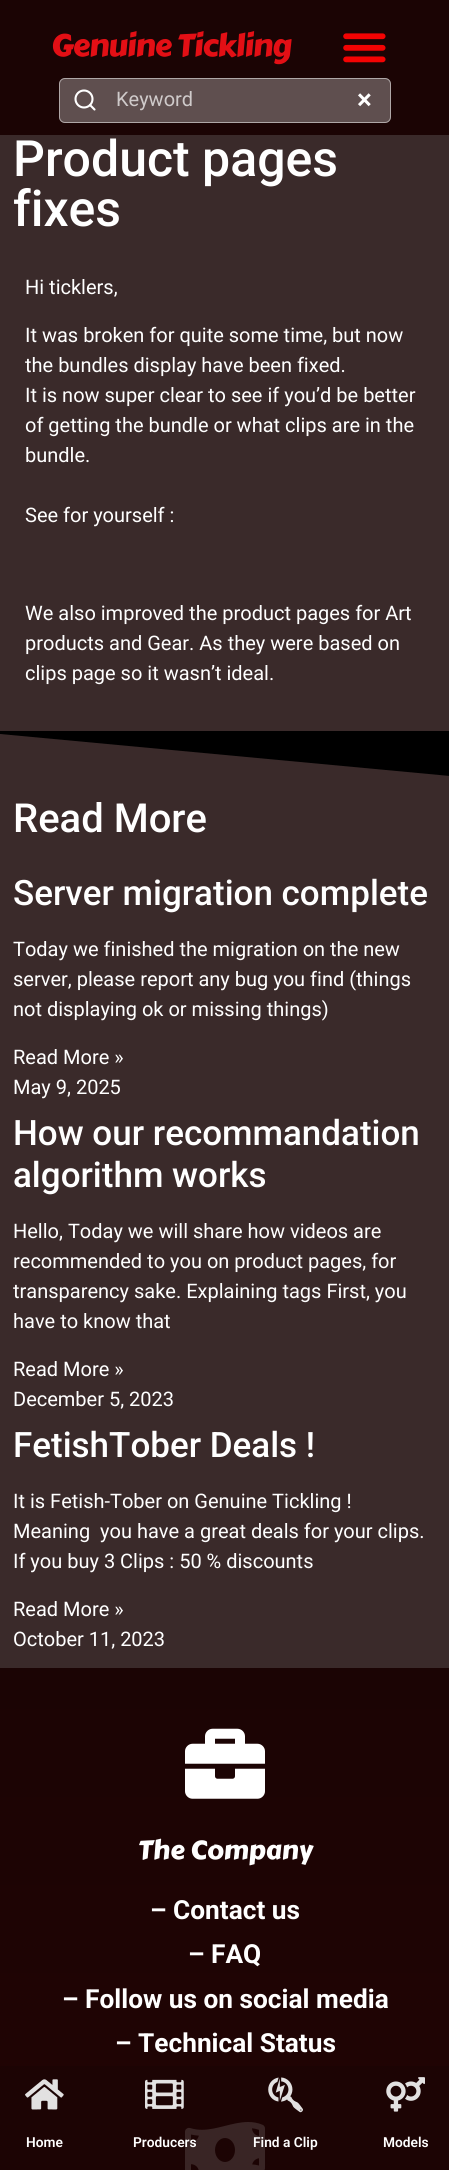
#include <cairo.h>
#include <math.h>
#include <stddef.h>

typedef struct { const char *family; double size; int italic, bold; unsigned color; } style_t;
static cairo_t *ctx;

static void ink(unsigned color) {
    cairo_set_source_rgb(ctx, (color >> 16) / 255.0, (color >> 8 & 255) / 255.0, (color & 255) / 255.0);
}

static void write(double x, double y, const char *s, const style_t *st) {
    cairo_select_font_face(ctx, st->family, st->italic ? CAIRO_FONT_SLANT_ITALIC : CAIRO_FONT_SLANT_NORMAL,
        st->bold ? CAIRO_FONT_WEIGHT_BOLD : CAIRO_FONT_WEIGHT_NORMAL);
    cairo_set_font_size(ctx, st->size);
    ink(st->color);
    cairo_move_to(ctx, x, y);
    cairo_show_text(ctx, s);
}

static void write_spaced(double x, double y, const char *s, double letter, double word) {
    cairo_move_to(ctx, x, y);
    while (*s) {
        char ch[5] = {0};
        int n = 0;
        do ch[n++] = *s++; while ((*s & 0xC0) == 0x80);
        cairo_show_text(ctx, ch);
        cairo_rel_move_to(ctx, letter + word * (*ch == ' '), 0);
    }
}

static void block(double x, double y, double w, double h, unsigned color) {
    ink(color);
    cairo_rectangle(ctx, x, y, w, h);
    cairo_fill(ctx);
}

static void round_path(double x, double y, double w, double h, double r) {
    cairo_new_sub_path(ctx);
    cairo_arc(ctx, x + w - r, y + h - r, r, 0, M_PI / 2);
    cairo_arc(ctx, x + r, y + h - r, r, M_PI / 2, M_PI);
    cairo_arc(ctx, x + r, y + r, r, M_PI, 1.5 * M_PI);
    cairo_arc(ctx, x + w - r, y + r, r, 1.5 * M_PI, 2 * M_PI);
    cairo_close_path(ctx);
}

static void paste(const char *path, double x, double y, double w, double h) {
    cairo_surface_t *image = cairo_image_surface_create_from_png(path);
    cairo_save(ctx);
    cairo_set_source_surface(ctx, image, x, y);
    cairo_rectangle(ctx, x, y, w, h);
    cairo_fill(ctx);
    cairo_restore(ctx);
    cairo_surface_destroy(image);
}

static const style_t s1 = {"Roboto", 20, 0, 0, 0xcfcaca};
static const style_t s2 = {"Roboto SemiBold", 28, 0, 0, 0xffffff};
static const style_t s3 = {"Roboto Medium", 50, 0, 0, 0xffffff};
static const style_t s4 = {"Roboto", 20, 0, 0, 0xffffff};
static const style_t s5 = {"Roboto Medium", 40, 0, 0, 0xffffff};
static const style_t s6 = {"Roboto Medium", 35, 0, 0, 0xffffff};
static const style_t s7 = {"Carter One", 26.25, 0, 0, 0xffffff};
static const style_t s8 = {"Roboto", 26.25, 0, 1, 0xffffff};
static const style_t s9 = {"Roboto SemiBold", 13.75, 0, 0, 0xffffff};

int main(void) {
    cairo_surface_t *surface = cairo_image_surface_create(CAIRO_FORMAT_RGB24, 449, 2170);
    ctx = cairo_create(surface);
    cairo_font_options_t *options = cairo_font_options_create();
    cairo_font_options_set_hint_metrics(options, CAIRO_HINT_METRICS_OFF);
    cairo_font_options_set_hint_style(options, CAIRO_HINT_STYLE_NONE);
    cairo_set_font_options(ctx, options);
    cairo_set_miter_limit(ctx, 4);
    cairo_pattern_t *gradient;
    ink(0x3a2a2a);
    cairo_paint(ctx);
    block(0, 0, 449, 135, 0x1b0404);
    cairo_select_font_face(ctx, "Carter One", CAIRO_FONT_SLANT_NORMAL, CAIRO_FONT_WEIGHT_NORMAL);
    cairo_set_font_size(ctx, 31.25);
    ink(0xe30f15);
    write_spaced(51, 56, "Genuine Tickling", -0.9, 0);
    paste("pic1.png", 343, 33, 43, 30);
    ink(0x5f4f4f);
    round_path(59, 78, 332, 45, 6);
    cairo_fill(ctx);
    round_path(59.5, 78.5, 331, 44, 5.5);
    cairo_set_source_rgba(ctx, 1, 1, 1, 0.5);
    cairo_set_line_width(ctx, 1);
    cairo_stroke(ctx);
    cairo_arc(ctx, 84, 99, 8.5, 0, 2 * M_PI);
    ink(0xffffff);
    cairo_set_line_width(ctx, 2.1);
    cairo_stroke(ctx);
    cairo_new_path(ctx);
    cairo_move_to(ctx, 94.5, 109.5);
    cairo_line_to(ctx, 90, 105);
    cairo_set_line_cap(ctx, CAIRO_LINE_CAP_ROUND);
    cairo_set_line_join(ctx, CAIRO_LINE_JOIN_ROUND);
    cairo_stroke(ctx);
    write(116, 106, "Keyword", &s1);
    write(357, 109, "×", &s2);
    write(13, 176, "Product pages", &s3);
    write(13, 226, "fixes", &s3);
    write(25, 294, "Hi ticklers,", &s4);
    write(25, 342, "It was broken for quite some time, but now", &s4);
    write(25, 372, "the bundles display have been fixed.", &s4);
    write(25, 402, "It is now super clear to see if you’d be better", &s4);
    write(25, 432, "of getting the bundle or what clips are in the", &s4);
    write(25, 462, "bundle.", &s4);
    write(25, 522, "See for yourself :", &s4);
    write(25, 620, "We also improved the product pages for Art", &s4);
    write(25, 650, "products and Gear. As they were based on", &s4);
    write(25, 680, "clips page so it wasn’t ideal.", &s4);
    ink(0x000000);
    cairo_new_path(ctx);
    cairo_move_to(ctx, 0, 734);
    cairo_line_to(ctx, 0, 731);
    cairo_line_to(ctx, 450, 731);
    cairo_line_to(ctx, 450, 776);
    cairo_close_path(ctx);
    cairo_fill(ctx);
    write(13, 832, "Read More", &s5);
    write(13, 905, "Server migration complete", &s6);
    write(13, 956, "Today we finished the migration on the new", &s4);
    write(13, 986, "server, please report any bug you find (things", &s4);
    write(13, 1016, "not displaying ok or missing things)", &s4);
    write(13, 1064, "Read More »", &s4);
    write(13, 1094, "May 9, 2025", &s4);
    write(13, 1145, "How our recommandation", &s6);
    write(13, 1187, "algorithm works", &s6);
    write(13, 1238, "Hello, Today we will share how videos are", &s4);
    write(13, 1268, "recommended to you on product pages, for", &s4);
    write(13, 1298, "transparency sake. Explaining tags First, you", &s4);
    write(13, 1328, "have to know that", &s4);
    write(13, 1376, "Read More »", &s4);
    write(13, 1406, "December 5, 2023", &s4);
    write(13, 1457, "FetishTober Deals !", &s6);
    write(13, 1508, "It is Fetish-Tober on Genuine Tickling !", &s4);
    write(13, 1538, "Meaning  you have a great deals for your clips.", &s4);
    write(13, 1568, "If you buy 3 Clips : 50 % discounts", &s4);
    write(13, 1616, "Read More »", &s4);
    write(13, 1646, "October 11, 2023", &s4);
    gradient = cairo_pattern_create_linear(225, 1668, 225, 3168);
    cairo_pattern_add_color_stop_rgba(gradient, 0, 0.106, 0.016, 0.016, 1);
    cairo_pattern_add_color_stop_rgba(gradient, 1, 0.173, 0.008, 0.008, 1);
    cairo_set_source(ctx, gradient);
    cairo_pattern_destroy(gradient);
    cairo_rectangle(ctx, 0, 1668, 449, 398);
    cairo_fill(ctx);
    gradient = cairo_pattern_create_linear(225, 1668, 225, 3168);
    cairo_pattern_add_color_stop_rgba(gradient, 0, 0.106, 0.016, 0.016, 1);
    cairo_pattern_add_color_stop_rgba(gradient, 1, 0.114, 0.016, 0.016, 1);
    cairo_set_source(ctx, gradient);
    cairo_pattern_destroy(gradient);
    cairo_rectangle(ctx, 0, 2066, 449, 104);
    cairo_fill(ctx);
    paste("pic2.png", 185, 1728, 80, 71);
    write(138, 1859, "The Company", &s7);
    write(150, 1919, "– Contact us", &s8);
    write(188, 1963, "– FAQ", &s8);
    write(62, 2008, "– Follow us on social media", &s8);
    write(115, 2052, "– Technical Status", &s8);
    paste("pic3.png", 185, 2122, 80, 48);
    paste("pic4.png", 25, 2079, 39, 31);
    paste("pic5.png", 145, 2079, 39, 30);
    paste("pic6.png", 268, 2077, 35, 36);
    paste("pic7.png", 386, 2077, 39, 35);
    write(26, 2147, "Home", &s9);
    write(133, 2147, "Producers", &s9);
    write(253, 2147, "Find a Clip", &s9);
    write(383, 2147, "Models", &s9);
    cairo_surface_write_to_png(surface, "screenshot.png");
    cairo_font_options_destroy(options);
    cairo_destroy(ctx);
    cairo_surface_destroy(surface);
    return 0;
}
